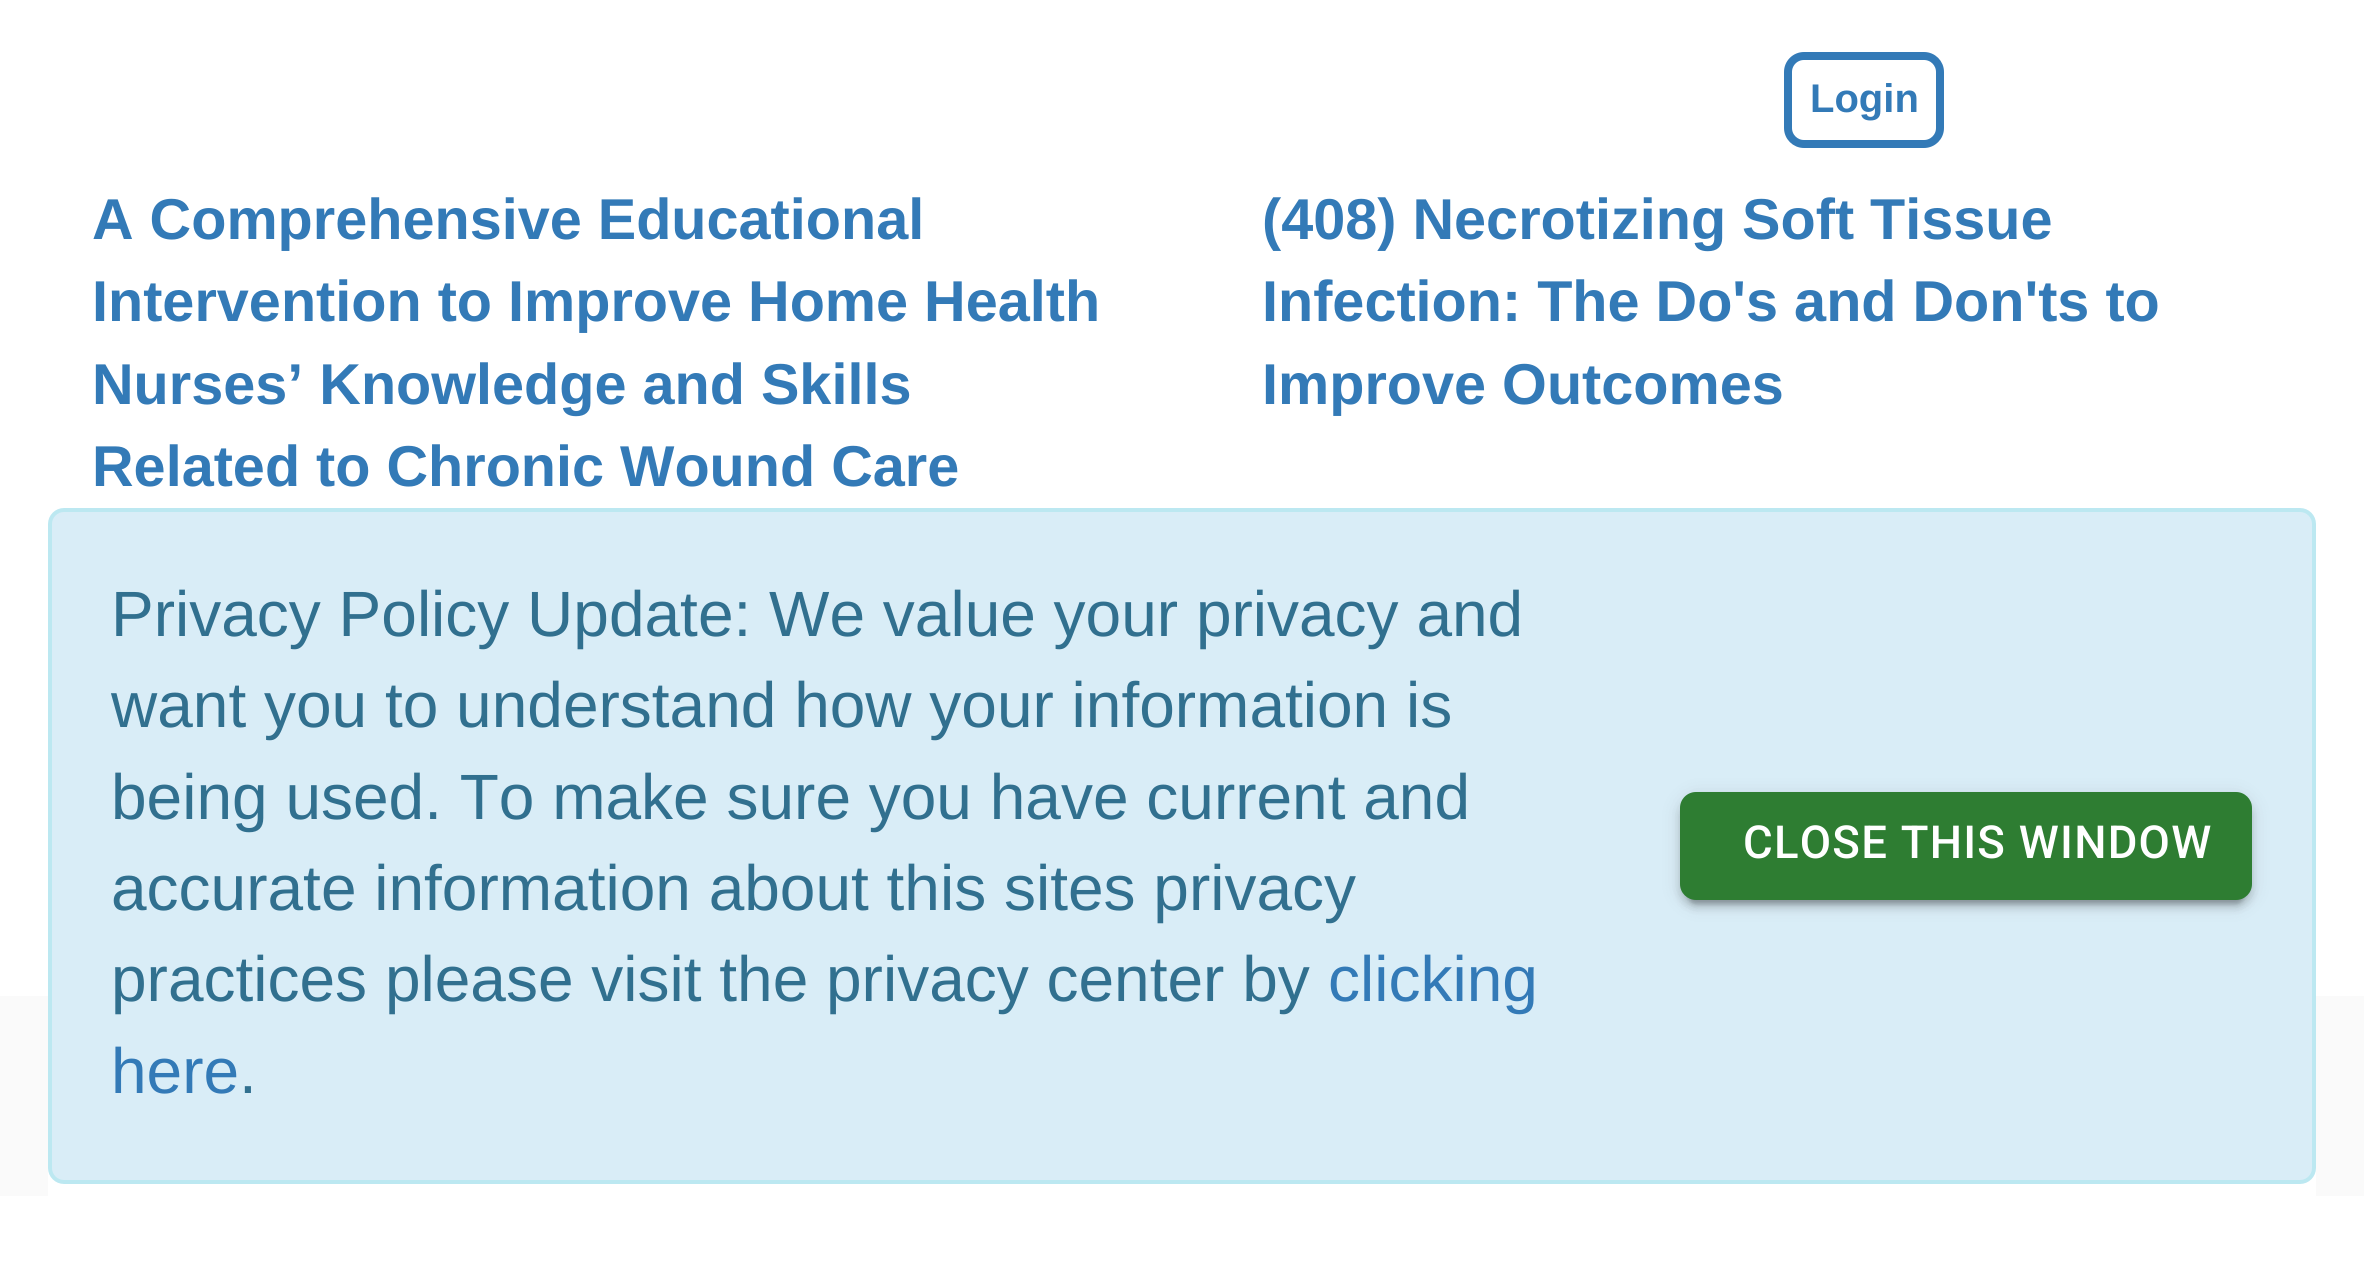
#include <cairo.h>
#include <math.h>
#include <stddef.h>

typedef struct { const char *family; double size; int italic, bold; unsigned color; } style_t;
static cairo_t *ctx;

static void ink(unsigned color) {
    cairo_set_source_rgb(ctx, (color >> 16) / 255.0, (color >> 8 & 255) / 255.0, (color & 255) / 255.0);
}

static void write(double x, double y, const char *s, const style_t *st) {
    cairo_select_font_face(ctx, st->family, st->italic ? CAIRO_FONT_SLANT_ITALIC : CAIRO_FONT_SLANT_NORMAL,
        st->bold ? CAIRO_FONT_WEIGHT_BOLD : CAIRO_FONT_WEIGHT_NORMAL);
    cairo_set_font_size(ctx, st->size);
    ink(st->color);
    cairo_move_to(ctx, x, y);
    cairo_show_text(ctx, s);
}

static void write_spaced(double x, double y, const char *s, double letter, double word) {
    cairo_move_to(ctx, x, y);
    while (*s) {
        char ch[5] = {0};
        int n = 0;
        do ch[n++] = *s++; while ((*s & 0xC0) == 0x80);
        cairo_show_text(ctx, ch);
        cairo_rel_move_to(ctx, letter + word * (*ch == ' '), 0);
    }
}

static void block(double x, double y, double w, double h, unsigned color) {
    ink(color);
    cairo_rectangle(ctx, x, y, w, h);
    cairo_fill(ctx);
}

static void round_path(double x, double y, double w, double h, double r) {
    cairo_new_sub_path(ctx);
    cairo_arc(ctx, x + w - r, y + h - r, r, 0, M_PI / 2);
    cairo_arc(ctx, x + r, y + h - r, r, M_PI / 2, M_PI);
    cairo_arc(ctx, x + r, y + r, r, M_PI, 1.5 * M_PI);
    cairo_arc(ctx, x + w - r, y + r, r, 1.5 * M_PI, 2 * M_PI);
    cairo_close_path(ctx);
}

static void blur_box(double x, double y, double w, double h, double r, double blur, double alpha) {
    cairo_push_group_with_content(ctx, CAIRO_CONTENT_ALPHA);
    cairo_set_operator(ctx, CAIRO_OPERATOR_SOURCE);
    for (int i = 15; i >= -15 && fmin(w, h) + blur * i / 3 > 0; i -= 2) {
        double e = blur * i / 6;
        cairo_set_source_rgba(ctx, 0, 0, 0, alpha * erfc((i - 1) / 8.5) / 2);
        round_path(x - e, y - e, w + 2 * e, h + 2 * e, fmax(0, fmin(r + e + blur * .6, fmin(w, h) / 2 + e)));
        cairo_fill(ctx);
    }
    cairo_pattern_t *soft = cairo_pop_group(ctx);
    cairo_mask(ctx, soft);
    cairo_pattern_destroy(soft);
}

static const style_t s1 = {"Liberation Sans", 40, 0, 1, 0x337ab7};
static const style_t s2 = {"Liberation Sans", 57.6, 0, 1, 0x337ab7};
static const style_t s3 = {"Liberation Sans", 64, 0, 0, 0x31708f};
static const style_t s4 = {"Liberation Sans", 64, 0, 0, 0x337ab7};

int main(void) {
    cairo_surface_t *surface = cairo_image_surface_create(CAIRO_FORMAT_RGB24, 2364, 1283);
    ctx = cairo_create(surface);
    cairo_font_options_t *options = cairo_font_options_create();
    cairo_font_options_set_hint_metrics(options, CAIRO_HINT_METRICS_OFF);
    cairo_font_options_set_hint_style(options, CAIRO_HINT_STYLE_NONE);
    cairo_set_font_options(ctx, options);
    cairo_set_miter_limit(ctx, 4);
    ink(0xffffff);
    cairo_paint(ctx);
    round_path(1788, 56, 152, 88, 16);
    ink(0x337ab7);
    cairo_set_line_width(ctx, 8);
    cairo_stroke(ctx);
    write(1810, 112, "Login", &s1);
    write(92, 239, "A Comprehensive Educational", &s2);
    write(92, 321, "Intervention to Improve Home Health", &s2);
    write(92, 404, "Nurses’ Knowledge and Skills", &s2);
    write(92, 486, "Related to Chronic Wound Care", &s2);
    write(1262, 239, "(408) Necrotizing Soft Tissue", &s2);
    write(1262, 321, "Infection: The Do's and Don'ts to", &s2);
    write(1262, 404, "Improve Outcomes", &s2);
    block(0, 996, 2364, 200, 0xfafafa);
    block(48, 996, 2268, 200, 0xffffff);
    ink(0xd9edf7);
    round_path(50, 510, 2264, 672, 14);
    cairo_fill_preserve(ctx);
    ink(0xbce8f1);
    cairo_set_line_width(ctx, 4);
    cairo_stroke(ctx);
    write(111, 636, "Privacy Policy Update: We value your privacy and", &s3);
    write(111, 727, "want you to understand how your information is", &s3);
    write(111, 819, "being used. To make sure you have current and", &s3);
    write(111, 910, "accurate information about this sites privacy", &s3);
    write(111, 1001, "practices please visit the privacy center by", &s3);
    write(1328, 1001, "clicking", &s4);
    write(111, 1093, "here", &s4);
    write(239, 1093, ".", &s3);
    ink(0x000000);
    blur_box(1680, 796, 572, 108, 16, 10, 0.12);
    blur_box(1680, 800, 572, 108, 16, 4, 0.14);
    blur_box(1688, 812, 556, 92, 8, 2, 0.2);
    ink(0x2e7d32);
    round_path(1680, 792, 572, 108, 16);
    cairo_fill(ctx);
    cairo_select_font_face(ctx, "Roboto Medium", CAIRO_FONT_SLANT_NORMAL, CAIRO_FONT_WEIGHT_NORMAL);
    cairo_set_font_size(ctx, 45.5);
    ink(0xffffff);
    write_spaced(1743, 858, "CLOSE THIS WINDOW", 1.25, 0);
    cairo_surface_write_to_png(surface, "screenshot.png");
    cairo_font_options_destroy(options);
    cairo_destroy(ctx);
    cairo_surface_destroy(surface);
    return 0;
}
